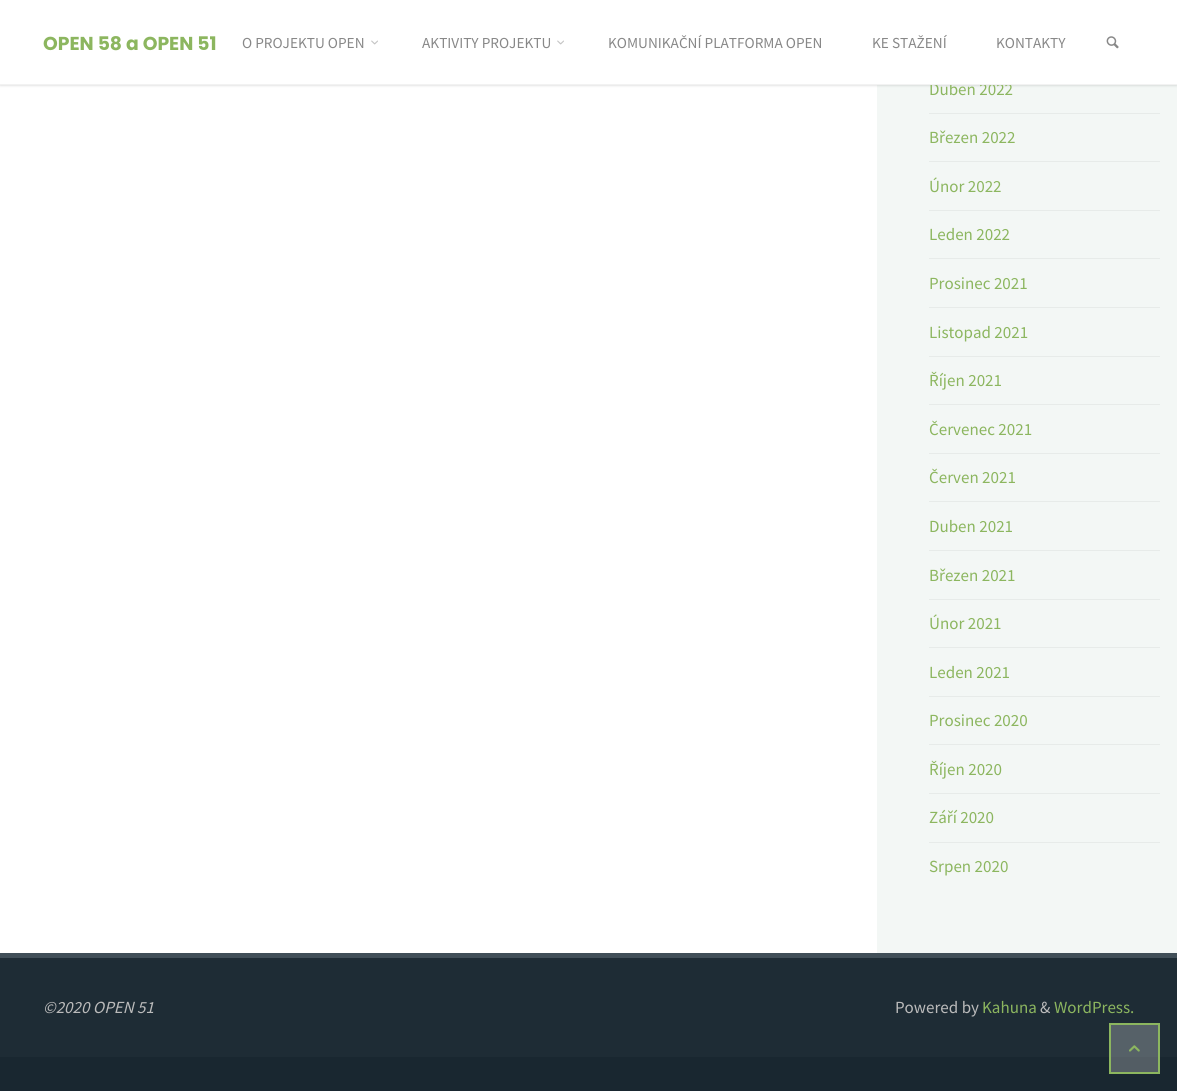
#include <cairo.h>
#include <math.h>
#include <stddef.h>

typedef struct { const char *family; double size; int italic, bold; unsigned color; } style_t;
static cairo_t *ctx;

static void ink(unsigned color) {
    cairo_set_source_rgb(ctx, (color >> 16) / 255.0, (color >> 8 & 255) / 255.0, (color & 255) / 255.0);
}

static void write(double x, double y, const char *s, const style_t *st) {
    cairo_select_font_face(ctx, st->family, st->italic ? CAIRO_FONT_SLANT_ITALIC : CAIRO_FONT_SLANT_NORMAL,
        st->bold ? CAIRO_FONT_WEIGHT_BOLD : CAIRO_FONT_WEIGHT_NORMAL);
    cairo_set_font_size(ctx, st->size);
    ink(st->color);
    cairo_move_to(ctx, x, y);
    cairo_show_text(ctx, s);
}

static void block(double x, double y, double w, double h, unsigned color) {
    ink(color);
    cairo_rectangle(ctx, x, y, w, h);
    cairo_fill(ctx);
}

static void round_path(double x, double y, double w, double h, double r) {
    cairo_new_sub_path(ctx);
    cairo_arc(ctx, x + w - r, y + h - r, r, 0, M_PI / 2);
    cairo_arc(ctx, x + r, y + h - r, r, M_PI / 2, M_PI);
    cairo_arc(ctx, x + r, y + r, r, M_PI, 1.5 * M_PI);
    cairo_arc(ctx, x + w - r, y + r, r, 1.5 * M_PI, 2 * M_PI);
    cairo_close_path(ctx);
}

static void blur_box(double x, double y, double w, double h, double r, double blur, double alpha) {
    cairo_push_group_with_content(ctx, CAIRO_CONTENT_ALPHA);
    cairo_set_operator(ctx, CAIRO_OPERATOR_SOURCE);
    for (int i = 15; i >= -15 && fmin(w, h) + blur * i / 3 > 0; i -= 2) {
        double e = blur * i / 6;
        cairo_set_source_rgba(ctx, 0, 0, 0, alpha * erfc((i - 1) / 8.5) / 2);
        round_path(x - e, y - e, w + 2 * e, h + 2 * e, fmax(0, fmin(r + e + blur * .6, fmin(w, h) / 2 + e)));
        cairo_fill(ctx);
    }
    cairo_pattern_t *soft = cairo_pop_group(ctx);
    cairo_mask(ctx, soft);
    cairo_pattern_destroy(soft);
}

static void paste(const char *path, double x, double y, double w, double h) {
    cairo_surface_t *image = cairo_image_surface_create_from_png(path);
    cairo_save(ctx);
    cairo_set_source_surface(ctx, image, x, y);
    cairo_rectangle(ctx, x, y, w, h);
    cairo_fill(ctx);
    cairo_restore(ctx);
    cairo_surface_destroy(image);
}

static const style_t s1 = {"Source Sans Pro", 17, 0, 0, 0x8cb65f};
static const style_t s2 = {"Poppins", 18.75, 0, 1, 0x8cb65f};
static const style_t s3 = {"Source Sans Pro", 15.25, 0, 0, 0x888888};
static const style_t s4 = {"Source Sans Pro", 17, 1, 0, 0xbbbbbb};
static const style_t s5 = {"Source Sans Pro", 17, 0, 0, 0xbbbbbb};

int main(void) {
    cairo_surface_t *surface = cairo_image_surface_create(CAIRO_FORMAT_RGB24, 1177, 1091);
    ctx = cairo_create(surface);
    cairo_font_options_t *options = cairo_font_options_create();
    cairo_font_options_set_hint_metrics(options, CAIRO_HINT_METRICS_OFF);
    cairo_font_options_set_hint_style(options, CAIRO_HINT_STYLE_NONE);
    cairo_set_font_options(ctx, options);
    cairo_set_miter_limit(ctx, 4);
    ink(0xf3f7f5);
    cairo_paint(ctx);
    block(0, 85, 877, 868, 0xffffff);
    ink(0x000000);
    blur_box(0, 0, 1177, 85, 0, 1.5, 0.2);
    write(929, 95, "Duben 2022", &s1);
    block(0, 0, 1177, 84, 0xffffff);
    block(0, 84, 1177, 1, 0xf2f2f2);
    write(43, 50, "OPEN 58 a OPEN 51", &s2);
    write(242, 48, "O PROJEKTU OPEN", &s3);
    paste("pic1.png", 371, 40, 7, 5);
    write(422, 48, "AKTIVITY PROJEKTU", &s3);
    paste("pic1.png", 557, 40, 7, 5);
    write(608, 48, "KOMUNIKAČNÍ PLATFORMA OPEN", &s3);
    write(872, 48, "KE STAŽENÍ", &s3);
    write(996, 48, "KONTAKTY", &s3);
    paste("pic2.png", 1106, 36, 13, 13);
    block(929, 113, 231, 1, 0xe7ebe9);
    block(929, 161, 231, 1, 0xe7ebe9);
    write(929, 143, "Březen 2022", &s1);
    block(929, 210, 231, 1, 0xe7ebe9);
    write(929, 192, "Únor 2022", &s1);
    block(929, 258, 231, 1, 0xe7ebe9);
    write(929, 240, "Leden 2022", &s1);
    block(929, 307, 231, 1, 0xe7ebe9);
    write(929, 289, "Prosinec 2021", &s1);
    block(929, 356, 231, 1, 0xe7ebe9);
    write(929, 338, "Listopad 2021", &s1);
    block(929, 404, 231, 1, 0xe7ebe9);
    write(929, 386, "Říjen 2021", &s1);
    block(929, 453, 231, 1, 0xe7ebe9);
    write(929, 435, "Červenec 2021", &s1);
    block(929, 501, 231, 1, 0xe7ebe9);
    write(929, 483, "Červen 2021", &s1);
    block(929, 550, 231, 1, 0xe7ebe9);
    write(929, 532, "Duben 2021", &s1);
    block(929, 599, 231, 1, 0xe7ebe9);
    write(929, 581, "Březen 2021", &s1);
    block(929, 647, 231, 1, 0xe7ebe9);
    write(929, 629, "Únor 2021", &s1);
    block(929, 696, 231, 1, 0xe7ebe9);
    write(929, 678, "Leden 2021", &s1);
    block(929, 744, 231, 1, 0xe7ebe9);
    write(929, 726, "Prosinec 2020", &s1);
    block(929, 793, 231, 1, 0xe7ebe9);
    write(929, 775, "Říjen 2020", &s1);
    block(929, 842, 231, 1, 0xe7ebe9);
    write(929, 823, "Září 2020", &s1);
    write(929, 872, "Srpen 2020", &s1);
    block(0, 953, 1177, 5, 0x414f58);
    block(0, 958, 1177, 99, 0x1e2c35);
    block(1111, 1025, 47, 32, 0x566168);
    write(43, 1013, "©2020 OPEN 51", &s4);
    write(895, 1013, "Powered by", &s5);
    write(982, 1013, "Kahuna", &s1);
    write(1040, 1013, "&", &s5);
    write(1054, 1013, "WordPress.", &s1);
    block(0, 1057, 1177, 34, 0x192730);
    block(1111, 1057, 47, 15, 0x535d64);
    cairo_rectangle(ctx, 1110, 1024, 49, 49);
    ink(0x8cb65f);
    cairo_stroke(ctx);
    paste("pic3.png", 1129, 1045, 11, 7);
    cairo_surface_write_to_png(surface, "screenshot.png");
    cairo_font_options_destroy(options);
    cairo_destroy(ctx);
    cairo_surface_destroy(surface);
    return 0;
}
